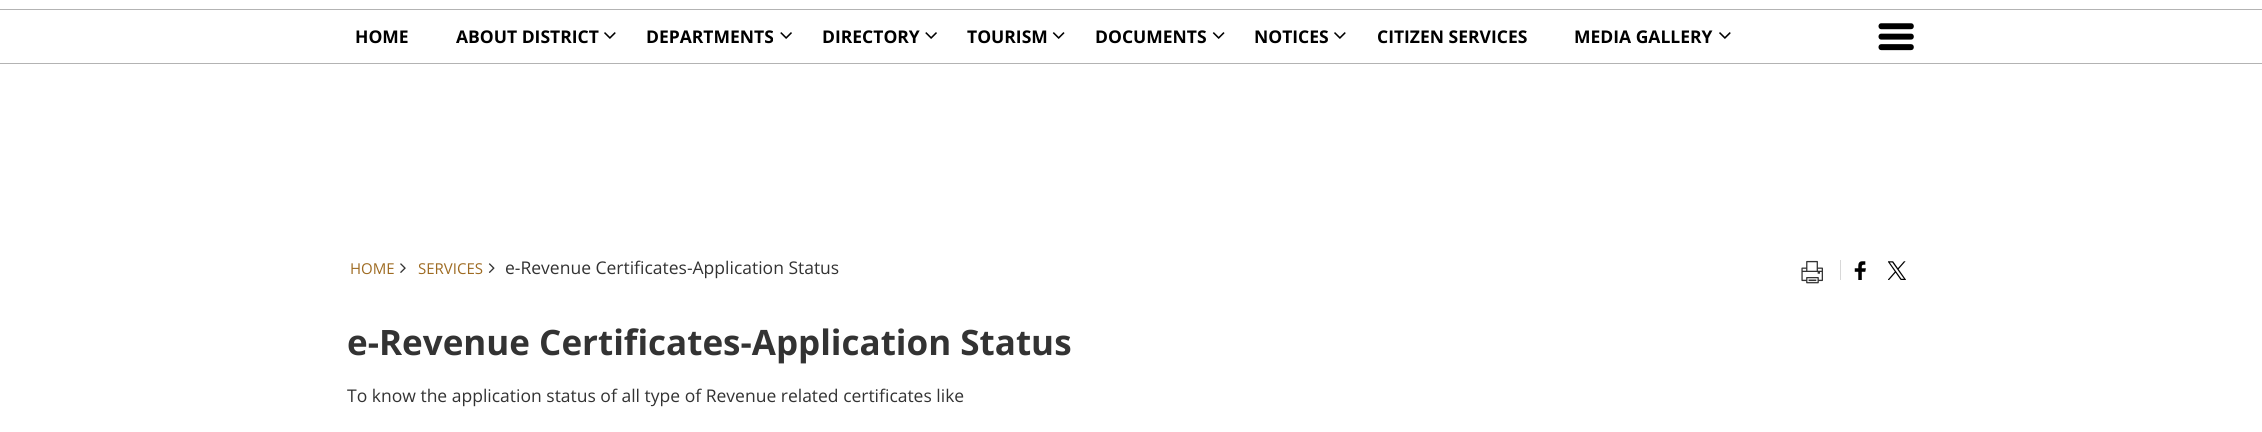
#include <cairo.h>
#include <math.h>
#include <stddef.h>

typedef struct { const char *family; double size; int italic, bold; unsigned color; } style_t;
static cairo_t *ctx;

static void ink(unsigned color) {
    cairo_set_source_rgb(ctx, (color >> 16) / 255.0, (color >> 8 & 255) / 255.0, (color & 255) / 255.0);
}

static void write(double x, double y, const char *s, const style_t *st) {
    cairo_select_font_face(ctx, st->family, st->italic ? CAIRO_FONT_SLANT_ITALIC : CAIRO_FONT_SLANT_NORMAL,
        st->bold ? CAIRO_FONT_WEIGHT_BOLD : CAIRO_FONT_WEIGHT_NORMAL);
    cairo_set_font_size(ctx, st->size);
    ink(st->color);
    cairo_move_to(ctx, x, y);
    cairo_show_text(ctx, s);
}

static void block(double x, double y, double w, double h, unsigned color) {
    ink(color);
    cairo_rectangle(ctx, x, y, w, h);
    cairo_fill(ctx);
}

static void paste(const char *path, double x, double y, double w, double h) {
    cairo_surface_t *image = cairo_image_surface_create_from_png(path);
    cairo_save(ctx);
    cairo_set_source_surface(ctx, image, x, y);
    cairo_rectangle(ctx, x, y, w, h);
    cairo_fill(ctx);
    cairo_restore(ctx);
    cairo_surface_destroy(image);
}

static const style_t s1 = {"Open Sans", 17.5, 0, 1, 0x000000};
static const style_t s2 = {"Open Sans", 15, 0, 0, 0x9e6b22};
static const style_t s3 = {"Open Sans", 17.5, 0, 0, 0x333333};
static const style_t s4 = {"Open Sans", 35, 0, 1, 0x333333};

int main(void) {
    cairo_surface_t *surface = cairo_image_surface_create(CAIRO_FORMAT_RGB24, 2262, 432);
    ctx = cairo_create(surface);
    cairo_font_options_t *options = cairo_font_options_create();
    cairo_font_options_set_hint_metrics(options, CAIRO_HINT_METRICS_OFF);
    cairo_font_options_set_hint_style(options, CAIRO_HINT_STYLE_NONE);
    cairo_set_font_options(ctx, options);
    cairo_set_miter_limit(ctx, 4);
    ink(0xffffff);
    cairo_paint(ctx);
    block(0, 9, 2262, 1, 0xb3b3b3);
    block(0, 63, 2262, 1, 0xb3b3b3);
    write(355, 43, "HOME", &s1);
    write(456, 43, "ABOUT DISTRICT", &s1);
    paste("pic1.png", 604, 32, 12, 7);
    write(646, 43, "DEPARTMENTS", &s1);
    paste("pic2.png", 780, 32, 12, 7);
    write(822, 43, "DIRECTORY", &s1);
    paste("pic2.png", 925, 32, 12, 7);
    write(967, 43, "TOURISM", &s1);
    paste("pic3.png", 1052, 32, 13, 7);
    write(1095, 43, "DOCUMENTS", &s1);
    paste("pic3.png", 1212, 32, 13, 7);
    write(1254, 43, "NOTICES", &s1);
    paste("pic1.png", 1334, 32, 12, 7);
    write(1377, 43, "CITIZEN SERVICES", &s1);
    write(1574, 43, "MEDIA GALLERY", &s1);
    paste("pic1.png", 1719, 32, 12, 7);
    paste("pic4.png", 1878, 23, 36, 28);
    write(350, 274, "HOME", &s2);
    paste("pic5.png", 400, 263, 6, 10);
    write(418, 274, "SERVICES", &s2);
    paste("pic6.png", 488, 263, 7, 10);
    write(505, 274, "e-Revenue Certificates-Application Status", &s3);
    paste("pic7.png", 1801, 260, 22, 24);
    block(1840, 260, 1, 20, 0xd8d8d8);
    paste("pic8.png", 1854, 261, 12, 19);
    paste("pic9.png", 1888, 261, 18, 19);
    write(347, 355, "e-Revenue Certificates-Application Status", &s4);
    write(347, 402, "To know the application status of all type of Revenue related certificates like", &s3);
    cairo_surface_write_to_png(surface, "screenshot.png");
    cairo_font_options_destroy(options);
    cairo_destroy(ctx);
    cairo_surface_destroy(surface);
    return 0;
}
